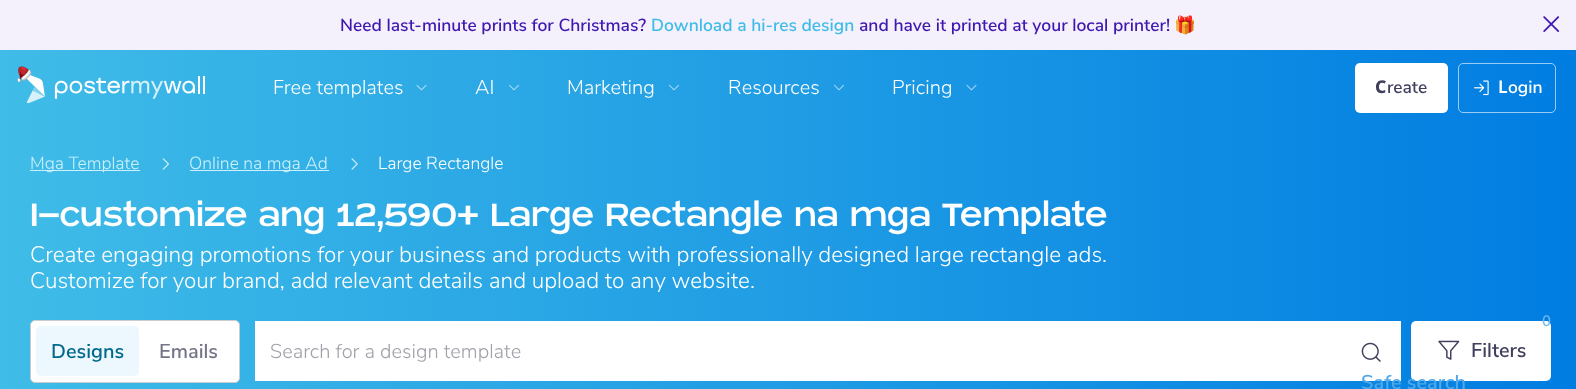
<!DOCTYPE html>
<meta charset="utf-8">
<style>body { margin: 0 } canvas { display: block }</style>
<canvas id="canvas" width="1576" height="389"></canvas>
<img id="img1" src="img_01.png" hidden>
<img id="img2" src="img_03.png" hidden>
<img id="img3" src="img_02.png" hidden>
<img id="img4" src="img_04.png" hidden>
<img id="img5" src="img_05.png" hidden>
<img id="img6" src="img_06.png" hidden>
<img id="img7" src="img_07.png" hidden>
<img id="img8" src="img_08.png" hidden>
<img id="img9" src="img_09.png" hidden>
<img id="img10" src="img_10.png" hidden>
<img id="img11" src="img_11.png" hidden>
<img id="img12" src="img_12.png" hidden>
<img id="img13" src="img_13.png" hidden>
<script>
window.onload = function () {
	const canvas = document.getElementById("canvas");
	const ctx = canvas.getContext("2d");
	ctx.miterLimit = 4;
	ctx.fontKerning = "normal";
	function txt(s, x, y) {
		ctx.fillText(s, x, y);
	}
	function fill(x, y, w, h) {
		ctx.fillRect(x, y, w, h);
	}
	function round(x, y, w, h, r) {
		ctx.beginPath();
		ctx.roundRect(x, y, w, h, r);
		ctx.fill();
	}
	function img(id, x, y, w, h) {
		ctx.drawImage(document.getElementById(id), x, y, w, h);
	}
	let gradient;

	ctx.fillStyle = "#FFFFFF";
	fill(0, 0, 1576, 389);
	ctx.fillStyle = "#F4F1FD";
	fill(0, 0, 1576, 50);
	img("img1", 1543, 16, 17, 16);
	gradient = ctx.createLinearGradient(0, 88, 1576, 87);
	gradient.addColorStop(0, "#3FBCE7");
	gradient.addColorStop(1, "#007DE1");
	ctx.fillStyle = gradient;
	fill(0, 50, 1576, 75);
	img("img2", 26, 75, 179, 28);
	img("img3", 17, 66, 15, 17);
	img("img4", 416, 84, 11, 7);
	img("img5", 509, 84, 10, 7);
	img("img6", 669, 84, 10, 7);
	img("img7", 834, 84, 10, 7);
	img("img8", 966, 84, 11, 7);
	ctx.fillStyle = "#FFFFFF";
	round(1355, 63, 93, 50, 5);
	ctx.beginPath();
	ctx.roundRect(1458.5, 63.5, 97, 49, 4.5);
	ctx.strokeStyle = "rgba(255, 255, 255, 0.6)";
	ctx.stroke();
	img("img9", 1474, 80, 15, 16);
	gradient = ctx.createLinearGradient(0, 261, 1576, 261);
	gradient.addColorStop(0, "#3FBCE7");
	gradient.addColorStop(1, "#007DE1");
	ctx.fillStyle = gradient;
	fill(0, 125, 1576, 264);
	ctx.fillStyle = "#CDF0FB";
	fill(30, 170, 110, 1);
	img("img10", 162, 158, 7, 12);
	fill(190, 170, 139, 1);
	img("img11", 351, 158, 7, 12);
	ctx.fillStyle = "#FFFFFF";
	ctx.beginPath();
	ctx.roundRect(30.5, 320.5, 209, 62, 4.5);
	ctx.fill();
	ctx.strokeStyle = "#CBCBD0";
	ctx.stroke();
	ctx.fillStyle = "#ECF8FD";
	round(36, 326, 103, 50, 5);
	ctx.fillStyle = "#FFFFFF";
	fill(255, 321, 1146, 60);
	img("img12", 1361, 342, 20, 20);
	round(1411, 321, 140, 60, 5);
	img("img13", 1438, 340, 22, 20);
	ctx.font = "600 17.5px Nunito Sans";
	ctx.fillStyle = "#4017AF";
	txt("Need last-minute prints for Christmas?", 340, 31);
	ctx.fillStyle = "#3FBCE7";
	txt("Download a hi-res design", 651, 31);
	ctx.fillStyle = "#4017AF";
	txt("and have it printed at your local printer!", 859, 31);
	ctx.font = "bold 17.5px Noto Color Emoji";
	txt("🎁", 1174, 31);
	ctx.font = "300 20px Nunito Sans";
	ctx.fillStyle = "#FFFFFF";
	txt("Free templates", 273, 94);
	txt("AI", 475, 94);
	txt("Marketing", 567, 94);
	txt("Resources", 728, 94);
	txt("Pricing", 892, 94);
	ctx.font = "800 17.5px Noto Sans";
	ctx.fillStyle = "#403F5D";
	txt("C", 1375, 93);
	ctx.font = "600 17.5px Nunito Sans";
	txt("reate", 1387, 93);
	ctx.font = "600 17.5px Noto Sans";
	ctx.fillStyle = "#FFFFFF";
	txt("L", 1498, 93);
	ctx.font = "600 17.5px Nunito Sans";
	txt("ogin", 1508, 93);
	ctx.font = "300 17.5px Nunito Sans";
	ctx.fillStyle = "#CDF0FB";
	txt("Mga Template", 30, 169);
	txt("Online na mga Ad", 189, 169);
	ctx.fillStyle = "#FFFFFF";
	txt("Large Rectangle", 378, 169);
	ctx.font = "40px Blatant";
	txt("I-customize ang 12,590+ Large Rectangle na mga Template", 30, 226);
	ctx.font = "300 22.5px Nunito Sans";
	txt("Create engaging promotions for your business and products with professionally designed large rectangle ads.", 30, 262);
	txt("Customize for your brand, add relevant details and upload to any website.", 30, 288);
	ctx.font = "600 20px Nunito Sans";
	ctx.fillStyle = "#00688C";
	txt("Designs", 51, 358);
	ctx.fillStyle = "#757589";
	txt("Emails", 159, 358);
	ctx.font = "300 20px Nunito Sans";
	ctx.fillStyle = "#A1A1AA";
	txt("Search for a design template", 270, 358);
	ctx.font = "600 15px Nunito Sans";
	ctx.fillStyle = "#73B8EF";
	txt("0", 1542, 326);
	ctx.font = "600 20px Nunito Sans";
	ctx.fillStyle = "#403F5D";
	txt("Filters", 1471, 357);
	ctx.fillStyle = "#51A9EB";
	txt("Safe search", 1361, 389);
};
</script>
